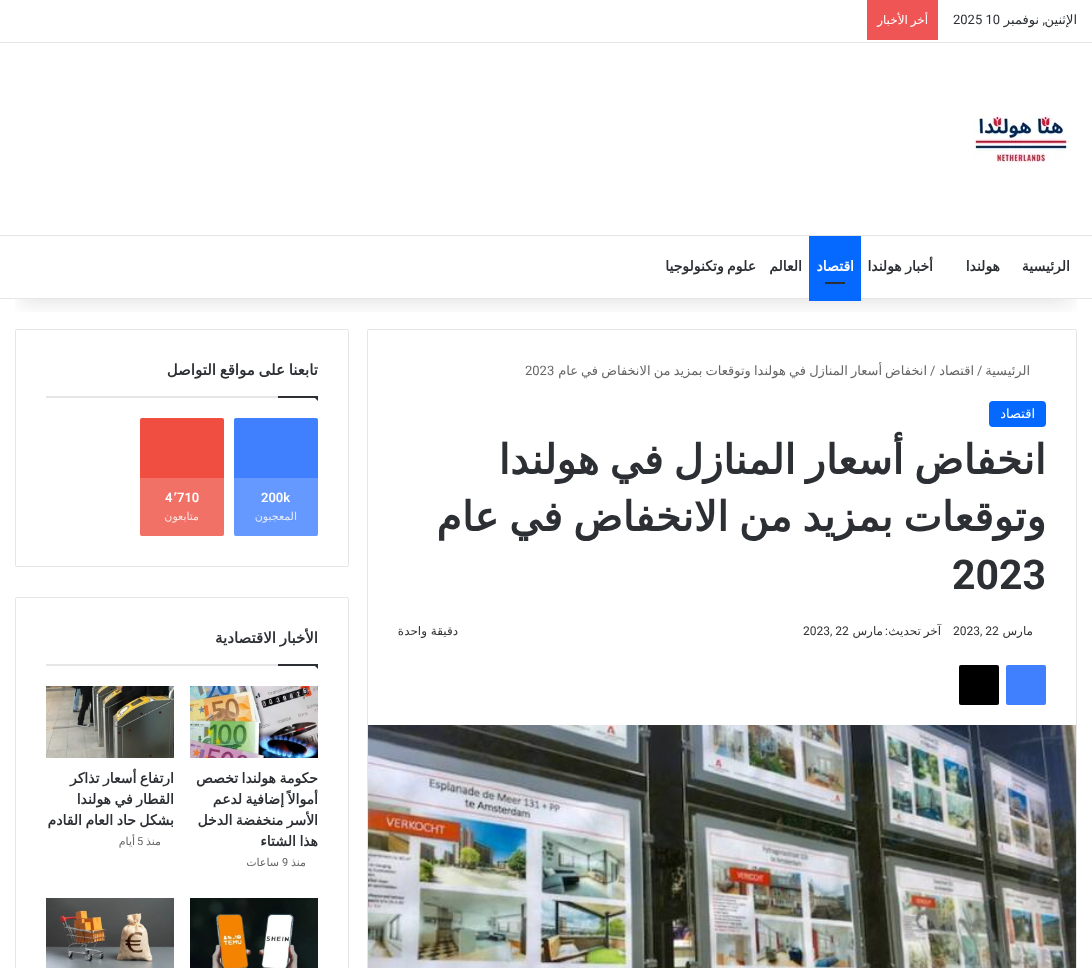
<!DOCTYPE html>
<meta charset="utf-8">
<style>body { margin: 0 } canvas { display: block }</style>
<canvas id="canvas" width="1092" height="968"></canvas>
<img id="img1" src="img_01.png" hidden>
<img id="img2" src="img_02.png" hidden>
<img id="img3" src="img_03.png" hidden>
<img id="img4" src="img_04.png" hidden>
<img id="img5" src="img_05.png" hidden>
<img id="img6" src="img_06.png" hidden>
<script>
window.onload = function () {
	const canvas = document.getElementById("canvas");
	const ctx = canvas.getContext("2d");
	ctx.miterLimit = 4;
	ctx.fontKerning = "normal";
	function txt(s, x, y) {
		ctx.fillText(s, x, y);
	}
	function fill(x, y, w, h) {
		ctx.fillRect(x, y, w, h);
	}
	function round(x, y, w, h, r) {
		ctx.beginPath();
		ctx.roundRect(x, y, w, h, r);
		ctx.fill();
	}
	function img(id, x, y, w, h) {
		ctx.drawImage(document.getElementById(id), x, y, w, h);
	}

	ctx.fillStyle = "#FFFFFF";
	fill(0, 0, 1092, 968);
	ctx.beginPath();
	ctx.roundRect(367.5, 329.5, 709, 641, 1.5);
	ctx.strokeStyle = "#E6E6E6";
	ctx.stroke();
	ctx.beginPath();
	ctx.roundRect(15.5, 329.5, 333, 237, 1.5);
	ctx.stroke();
	ctx.save();
	ctx.beginPath();
	ctx.rect(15, 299, 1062, 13);
	ctx.clip();
	ctx.fillStyle = "rgba(0, 0, 0, 0.1)";
	ctx.filter = "blur(10px)";
	ctx.beginPath();
	ctx.rect(20, 45, 1052, 259);
	ctx.fill();
	ctx.filter = "none";
	ctx.restore();
	ctx.fillStyle = "#E6E6E6";
	fill(0, 42, 1092, 1);
	ctx.fillStyle = "#F05555";
	fill(867, 0, 71, 40);
	img("img1", 973, 115, 100, 48);
	ctx.fillStyle = "#E6E6E6";
	fill(0, 235, 1092, 1);
	fill(0, 298, 1092, 1);
	ctx.fillStyle = "#0669FF";
	fill(809, 236, 52, 65);
	ctx.fillStyle = "#2C2F34";
	fill(825, 282, 20, 2);
	ctx.fillStyle = "#0669FF";
	round(989, 401, 57, 26, 4);
	ctx.fillStyle = "#4080FF";
	round(1006, 665, 40, 40, 2);
	ctx.fillStyle = "#000000";
	round(959, 665, 40, 40, 2);
	img("img2", 368, 725, 708, 243);
	ctx.fillStyle = "#E6E6E6";
	fill(46, 396, 232, 2);
	ctx.fillStyle = "#2C2F34";
	ctx.beginPath();
	ctx.moveTo(313, 396);
	ctx.lineTo(318, 396);
	ctx.lineTo(318, 401);
	ctx.closePath();
	ctx.fill();
	fill(278, 396, 40, 2);
	ctx.fillStyle = "#4080FF";
	round(234, 418, 84, 118, 2);
	ctx.fillStyle = "rgba(255, 255, 255, 0.2)";
	ctx.beginPath();
	ctx.roundRect(234, 478, 84, 58, [0, 0, 2, 2]);
	ctx.fill();
	ctx.fillStyle = "#EF4E41";
	round(140, 418, 84, 118, 2);
	ctx.fillStyle = "rgba(255, 255, 255, 0.2)";
	ctx.beginPath();
	ctx.roundRect(140, 478, 84, 58, [0, 0, 2, 2]);
	ctx.fill();
	ctx.beginPath();
	ctx.roundRect(15.5, 597.5, 333, 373, 1.5);
	ctx.stroke();
	ctx.fillStyle = "#E6E6E6";
	fill(46, 664, 232, 2);
	ctx.fillStyle = "#2C2F34";
	ctx.beginPath();
	ctx.moveTo(313, 664);
	ctx.lineTo(318, 664);
	ctx.lineTo(318, 669);
	ctx.closePath();
	ctx.fill();
	fill(278, 664, 40, 2);
	img("img3", 190, 686, 128, 72);
	img("img4", 46, 686, 128, 72);
	img("img5", 190, 898, 128, 70);
	img("img6", 46, 898, 128, 70);
	ctx.direction = "rtl";
	ctx.font = "13px DejaVu Sans";
	txt("الإثنين", 1077, 24);
	ctx.font = "13px Roboto";
	txt(",", 1045, 24);
	ctx.font = "13px DejaVu Sans";
	txt("نوفمبر", 1039, 24);
	ctx.direction = "ltr";
	ctx.font = "13px Roboto";
	txt("2025 10", 953, 24);
	ctx.wordSpacing = "-1px";
	ctx.direction = "rtl";
	ctx.font = "12px DejaVu Sans";
	ctx.fillStyle = "#FFFFFF";
	txt("أخر الأخبار", 928, 24);
	ctx.wordSpacing = "0px";
	ctx.font = "bold 14px DejaVu Sans";
	ctx.fillStyle = "#2C2F34";
	txt("الرئيسية", 1070, 271);
	txt("هولندا", 1000, 271);
	ctx.wordSpacing = "-1px";
	txt("أخبار هولندا", 933, 271);
	ctx.wordSpacing = "0px";
	ctx.fillStyle = "#FFFFFF";
	txt("اقتصاد", 854, 271);
	ctx.fillStyle = "#2C2F34";
	txt("العالم", 802, 271);
	ctx.wordSpacing = "-1px";
	txt("علوم وتكنولوجيا", 756, 271);
	ctx.wordSpacing = "0px";
	ctx.font = "13px DejaVu Sans";
	ctx.fillStyle = "#666666";
	txt("الرئيسية", 1030, 375);
	ctx.direction = "ltr";
	ctx.font = "13px Roboto";
	txt("/", 977, 375);
	ctx.direction = "rtl";
	ctx.font = "13px DejaVu Sans";
	txt("اقتصاد", 974, 375);
	ctx.direction = "ltr";
	ctx.font = "13px Roboto";
	txt("/", 930, 375);
	ctx.wordSpacing = "-1px";
	ctx.direction = "rtl";
	ctx.font = "13px DejaVu Sans";
	txt("انخفاض أسعار المنازل في هولندا وتوقعات بمزيد من الانخفاض في عام", 927, 375);
	ctx.wordSpacing = "0px";
	ctx.direction = "ltr";
	ctx.font = "13px Roboto";
	txt("2023", 525, 375);
	ctx.direction = "rtl";
	ctx.font = "13px DejaVu Sans";
	ctx.fillStyle = "#FFFFFF";
	txt("اقتصاد", 1035, 418);
	ctx.wordSpacing = "-2.75px";
	ctx.font = "bold 41px DejaVu Sans";
	ctx.fillStyle = "#2C2F34";
	txt("انخفاض أسعار المنازل في هولندا", 1046, 474);
	txt("وتوقعات بمزيد من الانخفاض في عام", 1046, 531);
	ctx.wordSpacing = "0px";
	ctx.direction = "ltr";
	ctx.font = "bold 41px Roboto";
	txt("2023", 952, 589);
	ctx.direction = "rtl";
	ctx.font = "12px DejaVu Sans";
	ctx.fillStyle = "#333333";
	txt("مارس", 1033, 635);
	ctx.direction = "ltr";
	ctx.font = "12px Roboto";
	txt("2023, 22", 953, 635);
	ctx.wordSpacing = "-1px";
	ctx.direction = "rtl";
	ctx.font = "12px DejaVu Sans";
	txt("آخر تحديث", 941, 635);
	ctx.wordSpacing = "0px";
	ctx.font = "12px Roboto";
	txt(":", 888, 635);
	ctx.font = "12px DejaVu Sans";
	txt("مارس", 883, 635);
	ctx.direction = "ltr";
	ctx.font = "12px Roboto";
	txt("2023, 22", 803, 635);
	ctx.direction = "rtl";
	ctx.font = "12px DejaVu Sans";
	txt("دقيقة واحدة", 458, 635);
	ctx.wordSpacing = "-1px";
	ctx.font = "bold 15px DejaVu Sans";
	ctx.fillStyle = "#2C2F34";
	txt("تابعنا على مواقع التواصل", 318, 375);
	ctx.wordSpacing = "0px";
	ctx.direction = "ltr";
	ctx.font = "600 13px Roboto";
	ctx.fillStyle = "#FFFFFF";
	txt("200k", 261, 502);
	ctx.direction = "rtl";
	ctx.font = "11px DejaVu Sans";
	ctx.fillStyle = "#E0EBFF";
	txt("المعجبون", 297, 520);
	ctx.direction = "ltr";
	ctx.font = "600 13px Roboto";
	ctx.fillStyle = "#FFFFFF";
	txt("710", 177, 502);
	ctx.font = "bold 13px DejaVu Sans";
	txt("٬", 173, 502);
	ctx.font = "600 13px Roboto";
	txt("4", 165, 502);
	ctx.direction = "rtl";
	ctx.font = "11px DejaVu Sans";
	ctx.fillStyle = "#FCE3E1";
	txt("متابعون", 199, 520);
	ctx.wordSpacing = "-1px";
	ctx.font = "bold 15px DejaVu Sans";
	ctx.fillStyle = "#2C2F34";
	txt("الأخبار الاقتصادية", 318, 643);
	ctx.font = "bold 14px DejaVu Sans";
	txt("حكومة هولندا تخصص", 318, 783);
	ctx.save();
	ctx.beginPath();
	ctx.rect(46, 686, 272, 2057);
	ctx.clip();
	txt("أموالاً إضافية لدعم", 318, 804);
	txt("الأسر منخفضة الدخل", 318, 825);
	ctx.restore();
	txt("هذا الشتاء", 318, 846);
	ctx.wordSpacing = "0px";
	ctx.font = "11px DejaVu Sans";
	ctx.fillStyle = "#666666";
	txt("منذ", 306, 866);
	ctx.direction = "ltr";
	ctx.font = "11px Roboto";
	txt("9", 282, 866);
	ctx.direction = "rtl";
	ctx.font = "11px DejaVu Sans";
	txt("ساعات", 279, 866);
	ctx.wordSpacing = "-1px";
	ctx.font = "bold 14px DejaVu Sans";
	ctx.fillStyle = "#2C2F34";
	txt("ارتفاع أسعار تذاكر", 174, 783);
	txt("القطار في هولندا", 174, 804);
	txt("بشكل حاد العام القادم", 174, 825);
	ctx.wordSpacing = "0px";
	ctx.font = "11px DejaVu Sans";
	ctx.fillStyle = "#666666";
	txt("منذ", 161, 845);
	ctx.direction = "ltr";
	ctx.font = "11px Roboto";
	txt("5", 137, 845);
	ctx.direction = "rtl";
	ctx.font = "11px DejaVu Sans";
	txt("أيام", 135, 845);
};
</script>
